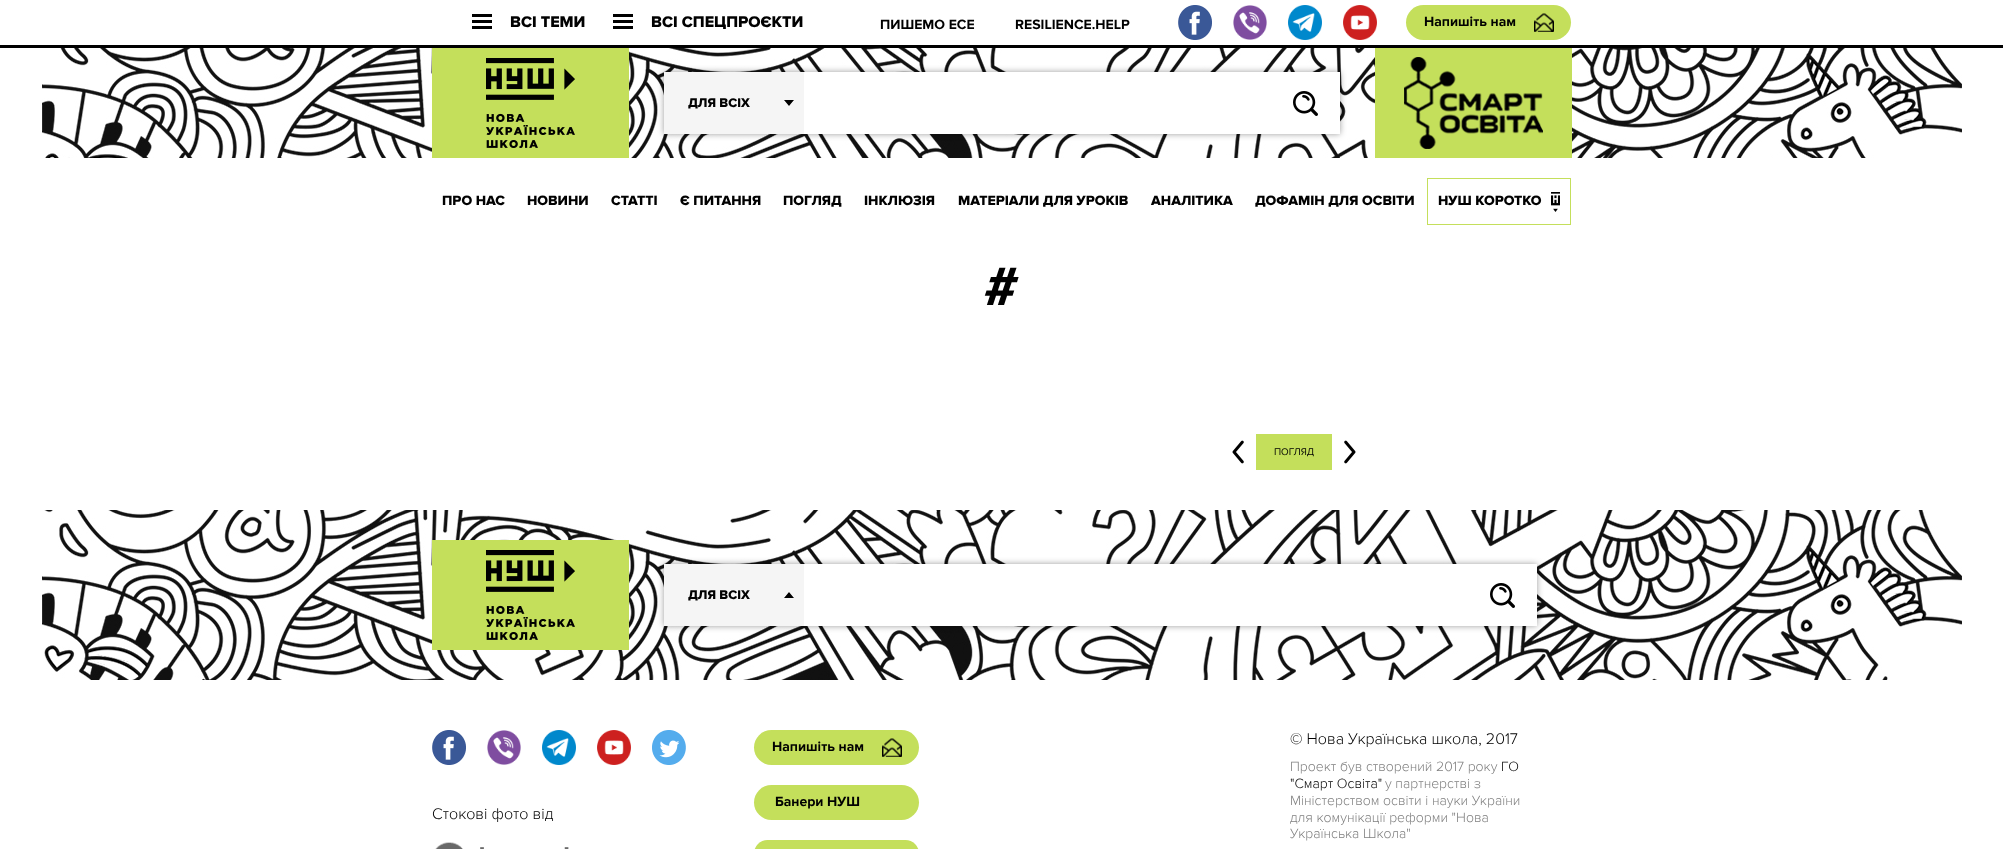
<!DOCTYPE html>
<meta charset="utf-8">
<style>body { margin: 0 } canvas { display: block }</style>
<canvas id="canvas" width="2003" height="849"></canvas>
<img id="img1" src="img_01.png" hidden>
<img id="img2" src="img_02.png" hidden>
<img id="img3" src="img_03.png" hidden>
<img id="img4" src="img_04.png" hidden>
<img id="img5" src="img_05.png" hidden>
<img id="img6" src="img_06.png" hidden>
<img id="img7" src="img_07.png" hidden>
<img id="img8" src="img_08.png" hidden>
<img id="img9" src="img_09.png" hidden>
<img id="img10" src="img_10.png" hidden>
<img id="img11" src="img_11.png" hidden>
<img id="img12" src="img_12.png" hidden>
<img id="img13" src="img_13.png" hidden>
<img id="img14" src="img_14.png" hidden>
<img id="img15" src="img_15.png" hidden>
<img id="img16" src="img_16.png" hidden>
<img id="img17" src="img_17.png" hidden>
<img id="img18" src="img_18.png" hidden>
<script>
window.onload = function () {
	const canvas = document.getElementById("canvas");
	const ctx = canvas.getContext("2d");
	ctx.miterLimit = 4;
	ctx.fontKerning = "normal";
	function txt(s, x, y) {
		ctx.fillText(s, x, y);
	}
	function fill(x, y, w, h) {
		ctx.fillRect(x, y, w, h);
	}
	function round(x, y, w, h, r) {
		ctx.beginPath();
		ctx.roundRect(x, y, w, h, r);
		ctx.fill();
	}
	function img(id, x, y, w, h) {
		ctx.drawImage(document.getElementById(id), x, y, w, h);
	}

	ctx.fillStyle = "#FFFFFF";
	fill(0, 0, 2003, 849);
	ctx.fillStyle = "#000000";
	fill(0, 45, 2003, 3);
	fill(472, 14, 20, 3);
	fill(472, 20, 20, 3);
	fill(472, 26, 20, 3);
	fill(613, 14, 20, 3);
	fill(613, 20, 20, 3);
	fill(613, 26, 20, 3);
	img("img1", 1178, 5, 34, 35);
	img("img2", 1233, 5, 34, 35);
	img("img3", 1288, 5, 34, 35);
	img("img4", 1343, 5, 34, 35);
	ctx.fillStyle = "#C4DF5B";
	round(1406, 5, 165, 35, 17.5);
	img("img5", 1534, 13, 20, 19);
	img("img6", 42, 48, 1920, 110);
	fill(432, 48, 197, 110);
	img("img7", 486, 58, 89, 90);
	ctx.fillStyle = "rgba(0, 0, 0, 0.39)";
	ctx.filter = "blur(3px)";
	ctx.beginPath();
	ctx.rect(664, 72, 676, 62);
	ctx.fill();
	ctx.filter = "none";
	ctx.fillStyle = "#FFFFFF";
	fill(804, 72, 536, 62);
	ctx.fillStyle = "#F5F5F5";
	fill(664, 72, 140, 62);
	img("img8", 784, 100, 10, 6);
	img("img9", 1293, 91, 25, 25);
	ctx.fillStyle = "#C4DF5B";
	fill(1375, 48, 197, 110);
	img("img10", 1404, 57, 139, 92);
	ctx.strokeStyle = "#C4DF5B";
	ctx.strokeRect(1427.5, 178.5, 143, 46);
	img("img11", 1551, 192, 9, 20);
	img("img12", 1232, 440, 12, 24);
	fill(1256, 434, 76, 36);
	img("img13", 1344, 440, 12, 24);
	img("img14", 42, 510, 1920, 170);
	fill(432, 540, 197, 110);
	img("img7", 486, 550, 89, 90);
	ctx.fillStyle = "rgba(0, 0, 0, 0.39)";
	ctx.filter = "blur(3px)";
	ctx.beginPath();
	ctx.rect(664, 564, 873, 62);
	ctx.fill();
	ctx.filter = "none";
	ctx.fillStyle = "#FFFFFF";
	fill(804, 564, 733, 62);
	ctx.fillStyle = "#F5F5F5";
	fill(664, 564, 140, 62);
	img("img15", 784, 592, 10, 6);
	img("img9", 1490, 583, 25, 25);
	ctx.fillStyle = "#C4DF5B";
	round(754, 730, 165, 35, 17.5);
	img("img5", 882, 738, 20, 19);
	round(754, 785, 165, 35, 17.5);
	round(754, 840, 165, 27, 17.5);
	img("img1", 432, 730, 34, 35);
	img("img2", 487, 730, 34, 35);
	img("img3", 542, 730, 34, 35);
	img("img16", 597, 730, 34, 35);
	img("img17", 652, 730, 34, 35);
	img("img18", 435, 842, 134, 7);
	ctx.font = "800 16px Proxima Nova";
	ctx.fillStyle = "#010101";
	txt("ВСІ ТЕМИ", 510, 27);
	txt("ВСІ СПЕЦПРОЄКТИ", 651, 27);
	ctx.font = "bold 14px Proxima Nova";
	txt("ПИШЕМО ЕСЕ", 880, 29);
	txt("RESILIENCE.HELP", 1015, 29);
	txt("Напишіть нам", 1424, 26);
	ctx.font = "800 13px Proxima Nova";
	txt("ДЛЯ ВСІХ", 688, 107);
	ctx.font = "800 14px Proxima Nova";
	txt("ПРО НАС", 442, 205);
	txt("НОВИНИ", 527, 205);
	txt("СТАТТІ", 611, 205);
	txt("Є ПИТАННЯ", 680, 205);
	txt("ПОГЛЯД", 783, 205);
	txt("ІНКЛЮЗІЯ", 864, 205);
	txt("МАТЕРІАЛИ ДЛЯ УРОКІВ", 958, 205);
	txt("АНАЛІТИКА", 1151, 205);
	txt("ДОФАМІН ДЛЯ ОСВІТИ", 1255, 205);
	txt("НУШ КОРОТКО", 1438, 205);
	ctx.font = "800 56px Proxima Nova";
	txt("#", 984, 305);
	ctx.font = "10px Proxima Nova";
	txt("ПОГЛЯД", 1274, 455);
	ctx.font = "800 13px Proxima Nova";
	txt("ДЛЯ ВСІХ", 688, 599);
	ctx.font = "bold 14px Proxima Nova";
	txt("Напишіть нам", 772, 751);
	txt("Банери НУШ", 775, 806);
	ctx.font = "300 16px Proxima Nova";
	txt("© Нова Українська школа, 2017", 1290, 744);
	ctx.font = "300 14px Proxima Nova";
	ctx.fillStyle = "#808080";
	txt("Проект був створений 2017 року", 1290, 771);
	ctx.fillStyle = "#010101";
	txt("ГО", 1501, 771);
	txt("\"Смарт Освіта\"", 1290, 788);
	ctx.fillStyle = "#808080";
	txt("у партнерстві з", 1385, 788);
	txt("Міністерством освіти і науки України", 1290, 805);
	txt("для комунікації реформи \"Нова", 1290, 822);
	txt("Українська Школа\"", 1290, 838);
	ctx.font = "300 16px Proxima Nova";
	ctx.fillStyle = "#010101";
	txt("Стокові фото від", 432, 819);
};
</script>
